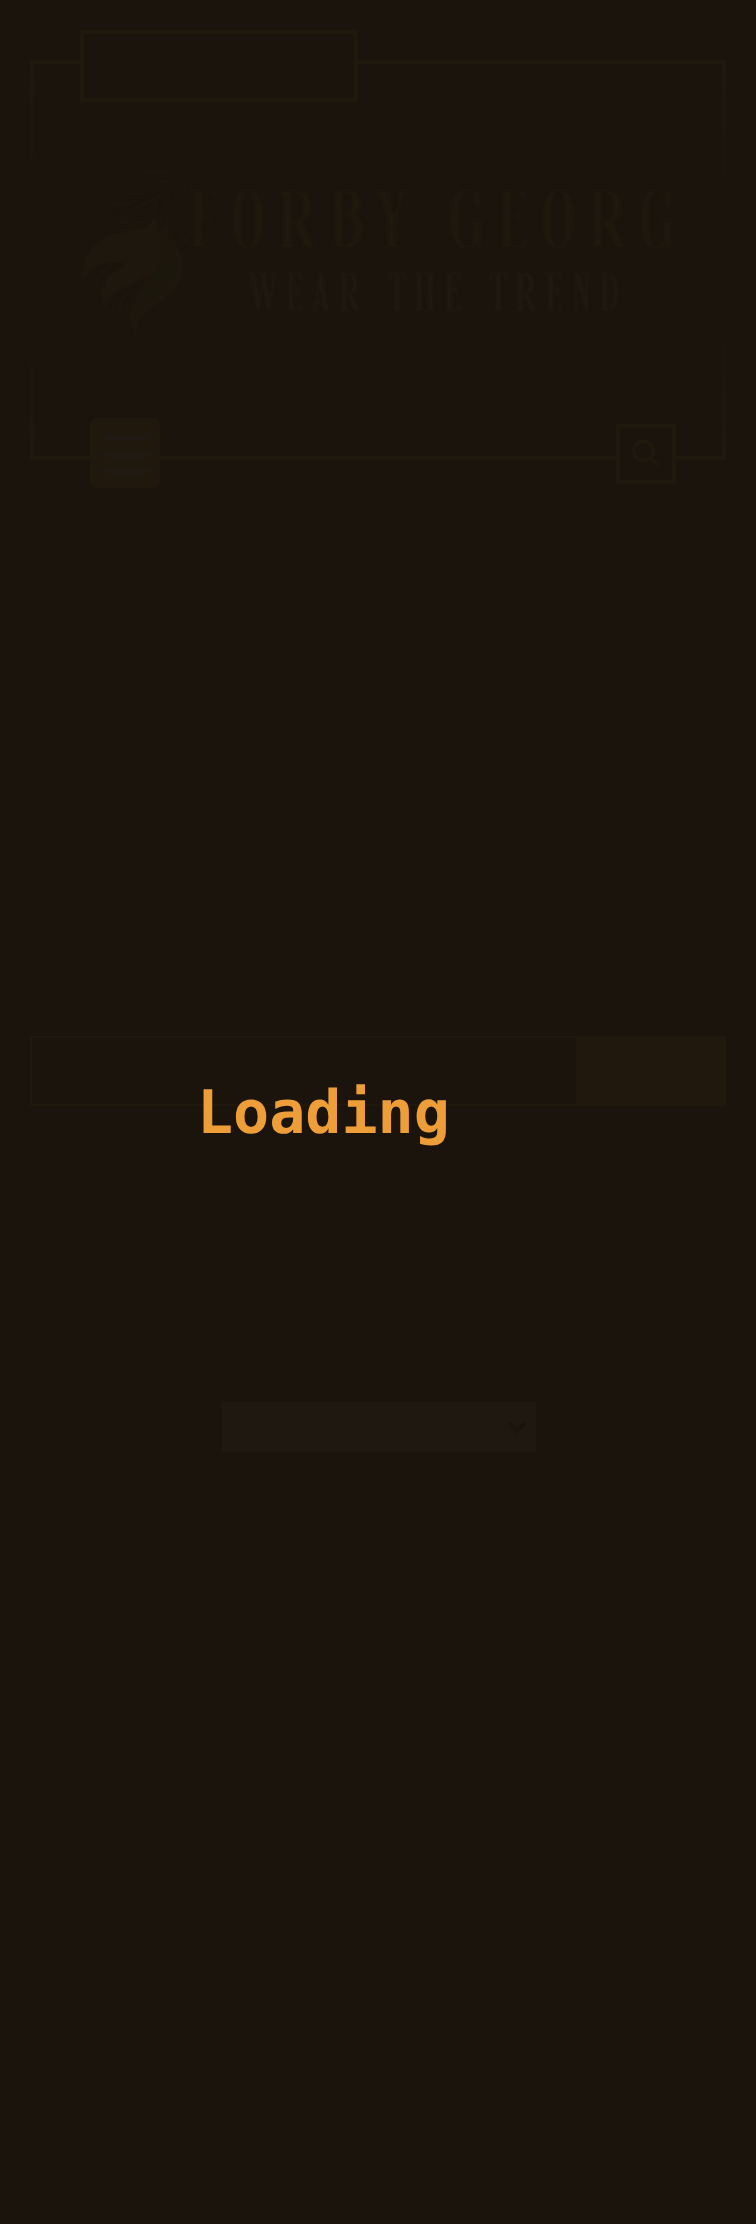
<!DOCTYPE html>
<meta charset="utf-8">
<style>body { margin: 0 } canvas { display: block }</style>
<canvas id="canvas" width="756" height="2224"></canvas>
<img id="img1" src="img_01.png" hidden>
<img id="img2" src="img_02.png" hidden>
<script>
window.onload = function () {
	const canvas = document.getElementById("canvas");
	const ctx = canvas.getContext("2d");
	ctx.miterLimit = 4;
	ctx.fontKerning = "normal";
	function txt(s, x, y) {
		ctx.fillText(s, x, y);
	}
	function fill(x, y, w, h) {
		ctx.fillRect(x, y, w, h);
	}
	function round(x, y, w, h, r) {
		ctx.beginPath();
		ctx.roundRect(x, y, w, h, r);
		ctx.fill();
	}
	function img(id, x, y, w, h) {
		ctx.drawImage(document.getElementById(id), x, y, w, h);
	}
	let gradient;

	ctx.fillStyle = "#1B140C";
	fill(0, 0, 756, 2224);
	ctx.fillStyle = "#20170D";
	fill(30, 60, 696, 4);
	fill(30, 456, 696, 4);
	gradient = ctx.createLinearGradient(32, 64, 32, 456);
	gradient.addColorStop(0, "#20170D");
	gradient.addColorStop(0.35, "#1B140C");
	gradient.addColorStop(0.65, "#1B140C");
	gradient.addColorStop(1, "#20170D");
	ctx.fillStyle = gradient;
	fill(30, 64, 4, 392);
	ctx.fillStyle = "#1B140C";
	fill(84, 60, 270, 4);
	ctx.strokeStyle = "#20170D";
	ctx.lineWidth = 4;
	ctx.strokeRect(82, 32, 274, 68);
	gradient = ctx.createLinearGradient(724, 64, 724, 456);
	gradient.addColorStop(0, "#20170D");
	gradient.addColorStop(0.35, "#1B140C");
	gradient.addColorStop(0.65, "#1B140C");
	gradient.addColorStop(1, "#20170D");
	ctx.fillStyle = gradient;
	fill(722, 64, 4, 392);
	img("img1", 81, 164, 595, 172);
	ctx.fillStyle = "#20170D";
	round(90, 418, 70, 70, 6);
	ctx.fillStyle = "#201911";
	round(102, 434, 50, 6, 3);
	round(102, 452, 50, 6, 3);
	round(102, 468, 50, 6, 3);
	ctx.fillStyle = "#1B140C";
	fill(620, 456, 52, 4);
	ctx.strokeRect(618, 426, 56, 56);
	img("img2", 632, 439, 28, 29);
	ctx.lineWidth = 2;
	ctx.strokeRect(31, 1037, 546, 68);
	ctx.fillStyle = "#20170D";
	fill(578, 1036, 148, 70);
	ctx.fillStyle = "#1F1811";
	ctx.beginPath();
	ctx.rect(223, 1403, 312, 48);
	ctx.fill();
	ctx.strokeStyle = "#1F1810";
	ctx.stroke();
	ctx.beginPath();
	ctx.moveTo(509, 1423);
	ctx.lineTo(517, 1431);
	ctx.lineTo(525, 1423);
	ctx.strokeStyle = "#1A140C";
	ctx.lineWidth = 4;
	ctx.stroke();
	ctx.font = "bold 60px DejaVu Sans Mono";
	ctx.fillStyle = "#ED9E38";
	txt("Loading", 197, 1133);
};
</script>
